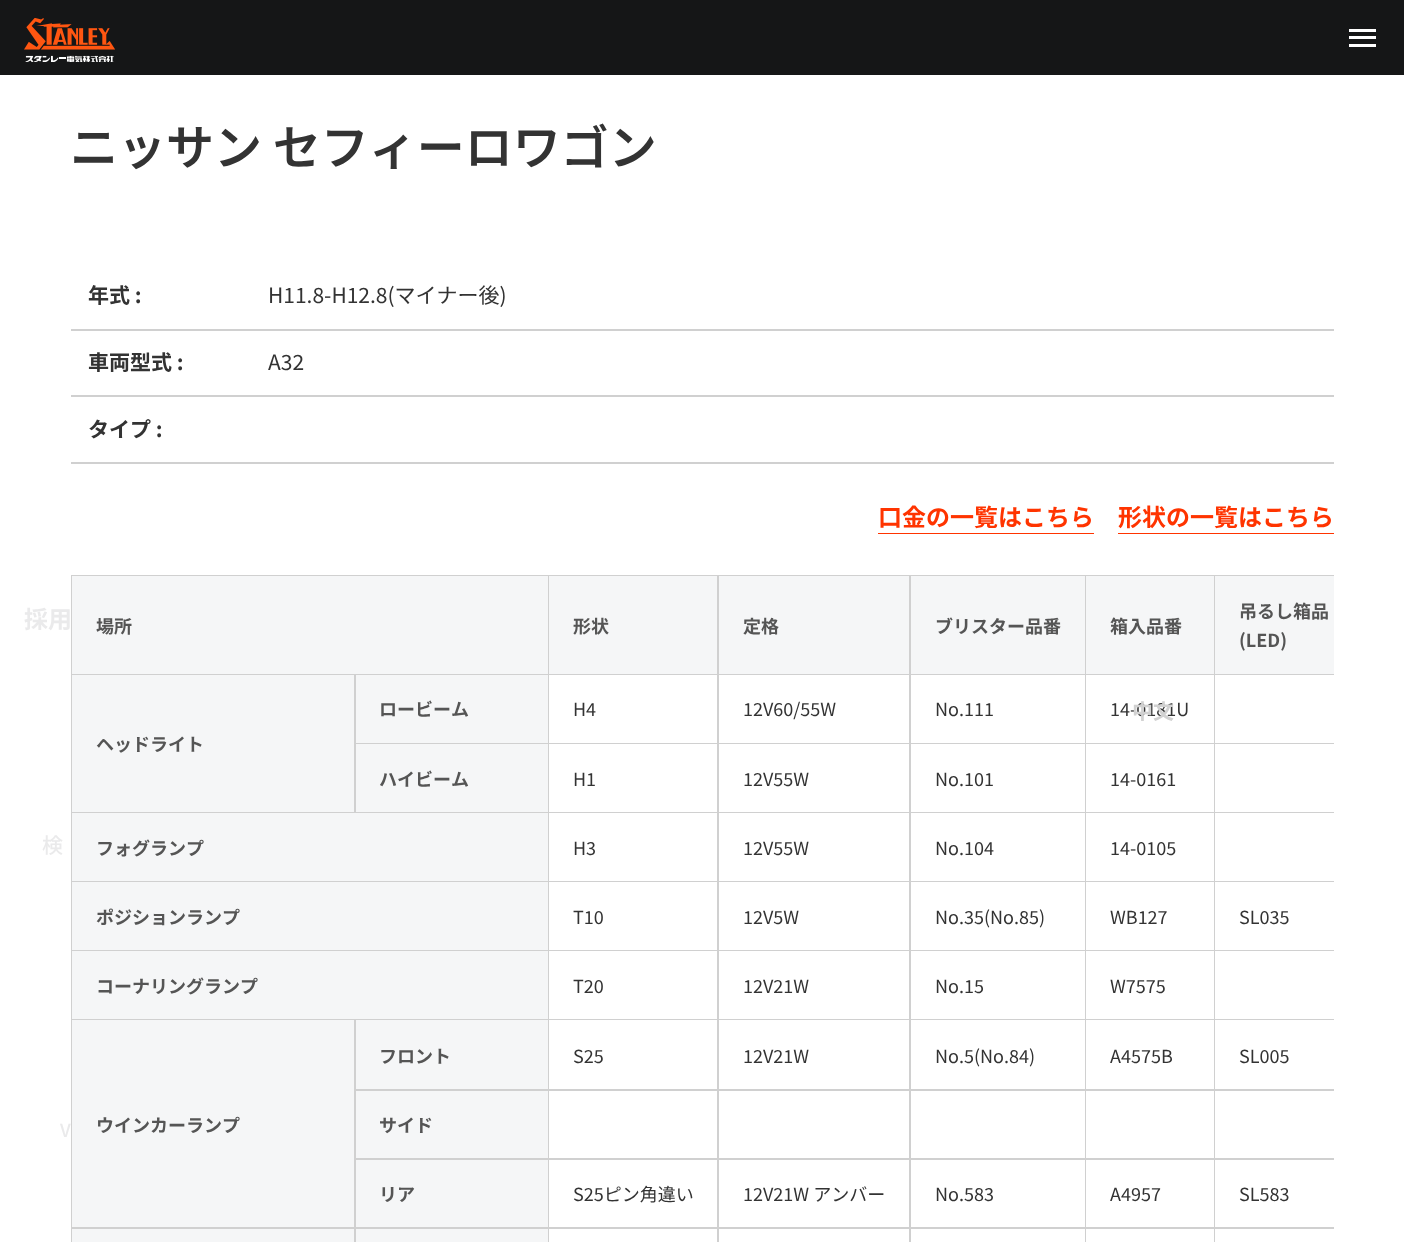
<!DOCTYPE html>
<meta charset="utf-8">
<style>body { margin: 0 } canvas { display: block }</style>
<canvas id="canvas" width="1404" height="1242"></canvas>
<img id="img1" src="img_01.png" hidden>
<script>
window.onload = function () {
	const canvas = document.getElementById("canvas");
	const ctx = canvas.getContext("2d");
	ctx.miterLimit = 4;
	ctx.fontKerning = "none";
	function txt(s, x, y) {
		ctx.fillText(s, x, y);
	}
	function fill(x, y, w, h) {
		ctx.fillRect(x, y, w, h);
	}
	function img(id, x, y, w, h) {
		ctx.drawImage(document.getElementById(id), x, y, w, h);
	}

	ctx.fillStyle = "#FFFFFF";
	fill(0, 0, 1404, 1242);
	ctx.fillStyle = "#D0D0D0";
	fill(71, 329, 1263, 2);
	fill(71, 395, 1263, 2);
	fill(71, 462, 1263, 2);
	ctx.fillStyle = "#FF3400";
	fill(878, 533, 216, 1);
	fill(1118, 533, 216, 1);
	ctx.fillStyle = "#D0D0D0";
	fill(71, 575, 1263, 1);
	fill(71, 575, 2, 667);
	ctx.fillStyle = "#F5F6F7";
	fill(72, 576, 476, 98);
	ctx.fillStyle = "#D0D0D0";
	fill(548, 576, 1, 666);
	fill(72, 674, 477, 1);
	ctx.fillStyle = "#F5F6F7";
	fill(549, 576, 168, 98);
	ctx.fillStyle = "#D0D0D0";
	fill(717, 576, 2, 666);
	fill(549, 674, 170, 1);
	ctx.fillStyle = "#F5F6F7";
	fill(719, 576, 190, 98);
	ctx.fillStyle = "#D0D0D0";
	fill(909, 576, 2, 666);
	fill(719, 674, 192, 1);
	ctx.fillStyle = "#F5F6F7";
	fill(911, 576, 174, 98);
	ctx.fillStyle = "#D0D0D0";
	fill(1085, 576, 1, 666);
	fill(911, 674, 175, 1);
	ctx.fillStyle = "#F5F6F7";
	fill(1086, 576, 128, 98);
	ctx.fillStyle = "#D0D0D0";
	fill(1214, 576, 1, 666);
	fill(1086, 674, 248, 1);
	ctx.fillStyle = "#F5F6F7";
	fill(1215, 576, 119, 98);
	fill(356, 675, 192, 68);
	ctx.fillStyle = "#D0D0D0";
	fill(356, 743, 978, 1);
	ctx.fillStyle = "#F5F6F7";
	fill(72, 675, 282, 137);
	ctx.fillStyle = "#D0D0D0";
	fill(354, 675, 2, 138);
	fill(72, 812, 1262, 1);
	ctx.fillStyle = "#F5F6F7";
	fill(356, 744, 192, 68);
	fill(72, 813, 476, 68);
	ctx.fillStyle = "#D0D0D0";
	fill(72, 881, 1262, 1);
	ctx.fillStyle = "#F5F6F7";
	fill(72, 882, 476, 68);
	ctx.fillStyle = "#D0D0D0";
	fill(72, 950, 1262, 1);
	ctx.fillStyle = "#F5F6F7";
	fill(72, 951, 476, 68);
	ctx.fillStyle = "#D0D0D0";
	fill(72, 1019, 1262, 1);
	ctx.fillStyle = "#F5F6F7";
	fill(356, 1020, 192, 69);
	ctx.fillStyle = "#D0D0D0";
	fill(356, 1089, 978, 2);
	ctx.fillStyle = "#F5F6F7";
	fill(72, 1020, 282, 207);
	ctx.fillStyle = "#D0D0D0";
	fill(354, 1020, 2, 222);
	fill(72, 1227, 1262, 2);
	ctx.fillStyle = "#F5F6F7";
	fill(356, 1091, 192, 67);
	ctx.fillStyle = "#D0D0D0";
	fill(356, 1158, 978, 2);
	ctx.fillStyle = "#F5F6F7";
	fill(356, 1160, 192, 67);
	fill(72, 1229, 282, 13);
	fill(356, 1229, 192, 13);
	ctx.fillStyle = "#151617";
	fill(0, 0, 1404, 75);
	img("img1", 24, 18, 91, 44);
	ctx.fillStyle = "#FFFFFF";
	fill(1349, 29, 27, 3);
	fill(1349, 36, 27, 3);
	fill(1349, 44, 27, 3);
	ctx.font = "600 48px Noto Sans JP";
	ctx.fillStyle = "#333333";
	txt("ニッサン セフィーロワゴン", 70, 165);
	ctx.font = "bold 21px Noto Sans JP";
	txt("年式 :", 88, 303);
	ctx.font = "21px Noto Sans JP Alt";
	txt("H11.8-H12.8(マイナー後)", 268, 303);
	ctx.font = "bold 21px Noto Sans JP";
	txt("車両型式 :", 88, 370);
	ctx.font = "21px Noto Sans JP";
	txt("A32", 268, 370);
	ctx.font = "bold 21px Noto Sans JP";
	txt("タイプ :", 88, 437);
	ctx.font = "bold 24px Noto Sans JP";
	ctx.fillStyle = "#FF3400";
	txt("口金の一覧はこちら", 878, 526);
	txt("形状の一覧はこちら", 1118, 526);
	ctx.font = "bold 18px Noto Sans JP";
	ctx.fillStyle = "#555555";
	txt("場所", 96, 633);
	txt("形状", 573, 633);
	txt("定格", 743, 633);
	txt("ブリスター品番", 935, 633);
	txt("箱入品番", 1110, 633);
	txt("吊るし箱品", 1239, 618);
	txt("(LED)", 1239, 647);
	txt("ロービーム", 379, 716);
	ctx.font = "18px Noto Sans JP";
	ctx.fillStyle = "#333333";
	txt("H4", 573, 716);
	txt("12V60/55W", 743, 716);
	txt("No.111", 935, 716);
	txt("14-0181U", 1110, 716);
	ctx.font = "bold 18px Noto Sans JP";
	ctx.fillStyle = "#555555";
	txt("ヘッドライト", 96, 751);
	txt("ハイビーム", 379, 786);
	ctx.font = "18px Noto Sans JP";
	ctx.fillStyle = "#333333";
	txt("H1", 573, 786);
	txt("12V55W", 743, 786);
	txt("No.101", 935, 786);
	txt("14-0161", 1110, 786);
	ctx.font = "bold 18px Noto Sans JP";
	ctx.fillStyle = "#555555";
	txt("フォグランプ", 96, 855);
	ctx.font = "18px Noto Sans JP";
	ctx.fillStyle = "#333333";
	txt("H3", 573, 855);
	txt("12V55W", 743, 855);
	txt("No.104", 935, 855);
	txt("14-0105", 1110, 855);
	ctx.font = "bold 18px Noto Sans JP";
	ctx.fillStyle = "#555555";
	txt("ポジションランプ", 96, 924);
	ctx.font = "18px Noto Sans JP";
	ctx.fillStyle = "#333333";
	txt("T10", 573, 924);
	txt("12V5W", 743, 924);
	txt("No.35(No.85)", 935, 924);
	txt("WB127", 1110, 924);
	txt("SL035", 1239, 924);
	ctx.font = "bold 18px Noto Sans JP";
	ctx.fillStyle = "#555555";
	txt("コーナリングランプ", 96, 993);
	ctx.font = "18px Noto Sans JP";
	ctx.fillStyle = "#333333";
	txt("T20", 573, 993);
	txt("12V21W", 743, 993);
	txt("No.15", 935, 993);
	txt("W7575", 1110, 993);
	ctx.font = "bold 18px Noto Sans JP";
	ctx.fillStyle = "#555555";
	txt("フロント", 379, 1063);
	ctx.font = "18px Noto Sans JP";
	ctx.fillStyle = "#333333";
	txt("S25", 573, 1063);
	txt("12V21W", 743, 1063);
	txt("No.5(No.84)", 935, 1063);
	txt("A4575B", 1110, 1063);
	txt("SL005", 1239, 1063);
	ctx.font = "bold 18px Noto Sans JP";
	ctx.fillStyle = "#555555";
	txt("ウインカーランプ", 96, 1132);
	txt("サイド", 379, 1132);
	txt("リア", 379, 1201);
	ctx.font = "18px Noto Sans JP";
	ctx.fillStyle = "#333333";
	txt("S25ピン角違い", 573, 1201);
	txt("12V21W アンバー", 743, 1201);
	txt("No.583", 935, 1201);
	txt("A4957", 1110, 1201);
	txt("SL583", 1239, 1201);
	ctx.font = "bold 24px Noto Sans JP";
	ctx.fillStyle = "#EAEAEB";
	txt("採用", 24, 628);
	ctx.font = "bold 21px Noto Sans JP";
	ctx.fillStyle = "#D1D1D1";
	txt("中文", 1132, 719);
	ctx.font = "500 21px Noto Sans JP";
	ctx.fillStyle = "#EAEAEB";
	txt("検", 42, 853);
	ctx.font = "500 18px Noto Sans JP";
	txt("V", 60, 1137);
};
</script>
